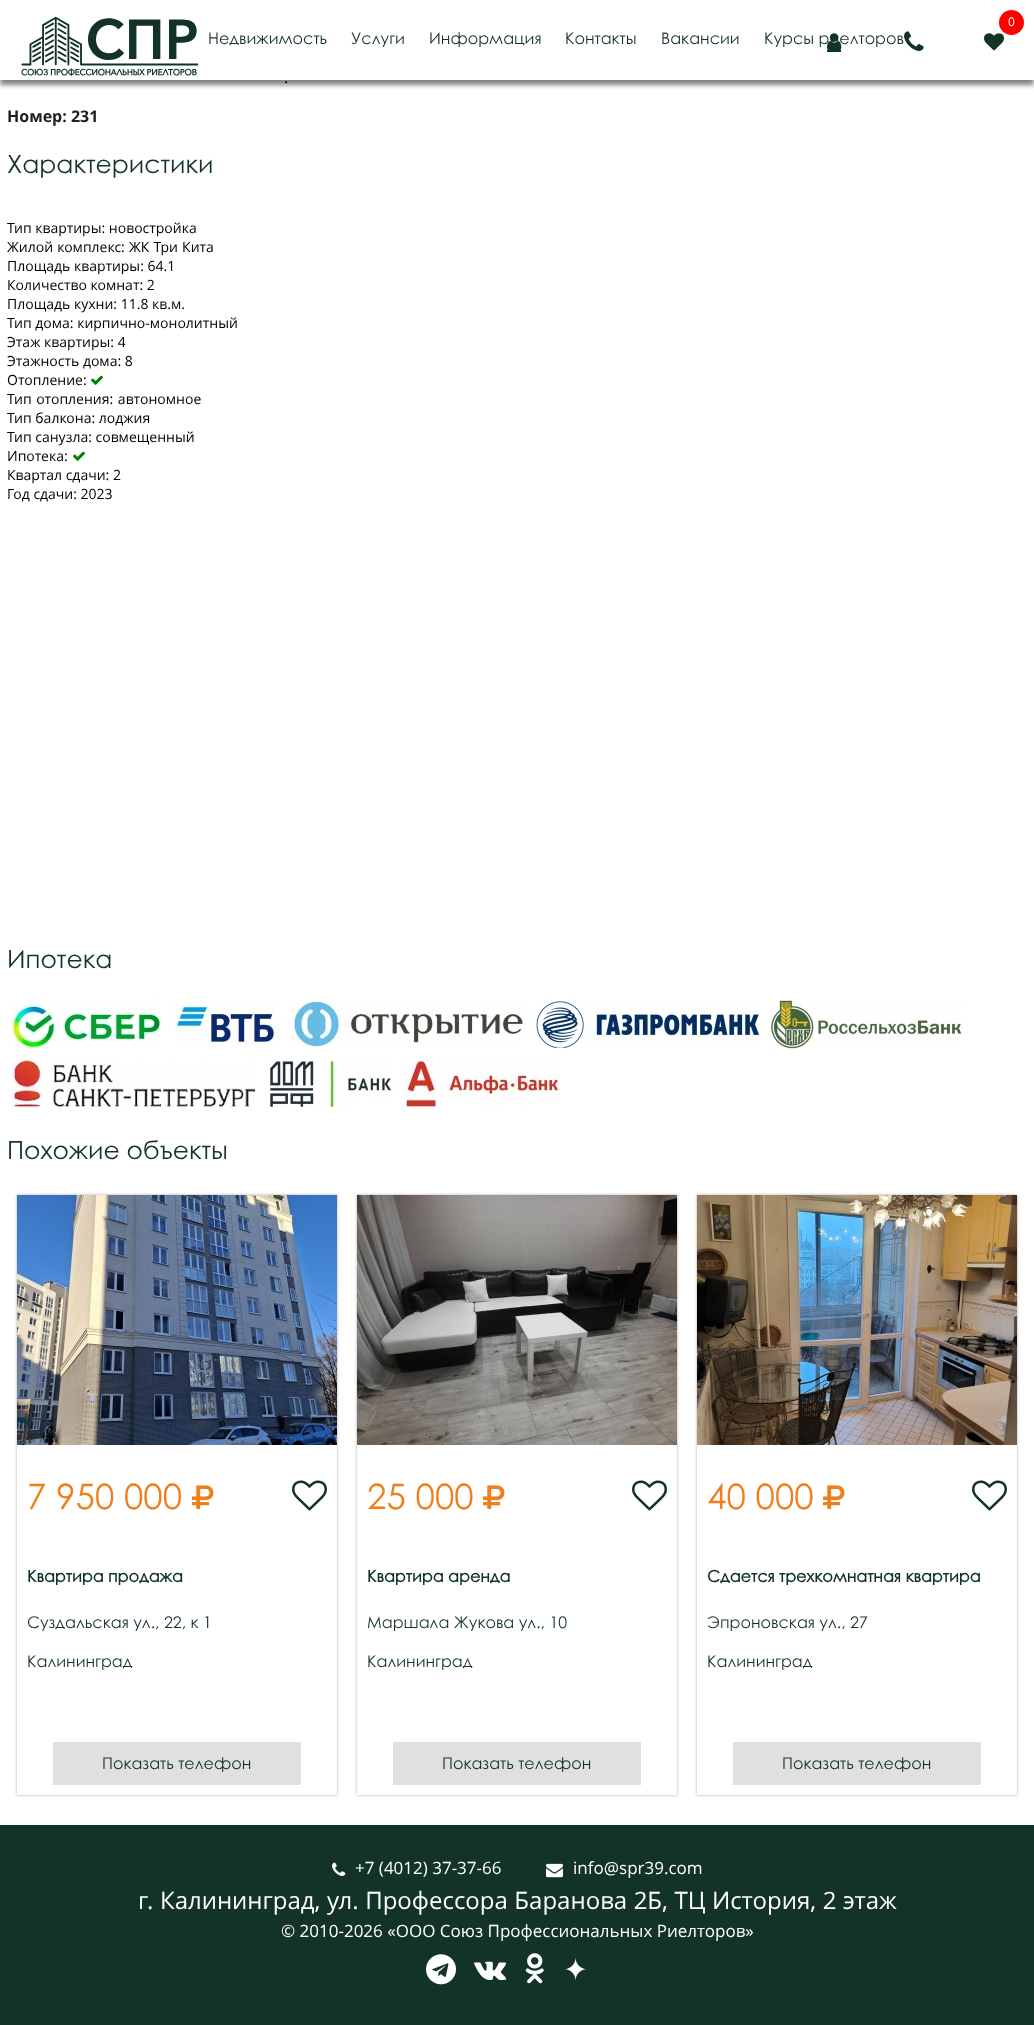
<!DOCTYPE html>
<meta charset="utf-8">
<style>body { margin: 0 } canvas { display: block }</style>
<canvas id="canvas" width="1034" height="2025"></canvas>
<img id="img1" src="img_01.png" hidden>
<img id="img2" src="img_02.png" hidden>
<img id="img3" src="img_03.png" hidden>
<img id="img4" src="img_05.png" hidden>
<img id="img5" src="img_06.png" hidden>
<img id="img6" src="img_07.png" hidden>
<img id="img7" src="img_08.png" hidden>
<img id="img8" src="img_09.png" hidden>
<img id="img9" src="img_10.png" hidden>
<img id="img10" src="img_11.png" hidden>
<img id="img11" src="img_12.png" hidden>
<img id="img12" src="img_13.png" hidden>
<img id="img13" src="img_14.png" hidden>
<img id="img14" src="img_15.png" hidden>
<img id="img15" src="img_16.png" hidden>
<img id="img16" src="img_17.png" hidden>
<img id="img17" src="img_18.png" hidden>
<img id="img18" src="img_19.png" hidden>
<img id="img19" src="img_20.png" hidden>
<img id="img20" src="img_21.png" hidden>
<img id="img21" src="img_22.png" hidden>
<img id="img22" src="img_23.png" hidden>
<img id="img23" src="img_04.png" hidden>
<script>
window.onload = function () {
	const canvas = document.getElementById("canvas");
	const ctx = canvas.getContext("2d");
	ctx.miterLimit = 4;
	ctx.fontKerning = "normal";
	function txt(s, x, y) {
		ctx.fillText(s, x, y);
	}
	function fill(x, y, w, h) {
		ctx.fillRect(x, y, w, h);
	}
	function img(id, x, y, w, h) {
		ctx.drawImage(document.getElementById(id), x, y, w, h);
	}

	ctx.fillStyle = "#FFFFFF";
	fill(0, 0, 1034, 2025);
	ctx.save();
	ctx.beginPath();
	ctx.rect(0, 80, 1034, 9);
	ctx.clip();
	ctx.fillStyle = "rgba(0, 0, 0, 0.5)";
	ctx.filter = "blur(2.5px)";
	ctx.beginPath();
	ctx.rect(0, 5, 1034, 80);
	ctx.fill();
	ctx.filter = "none";
	ctx.restore();
	img("img1", 21, 16, 178, 60);
	img("img2", 984, 33, 20, 18);
	ctx.fillStyle = "#FF0000";
	ctx.beginPath();
	ctx.arc(1011.5, 22.5, 12.5, 0, Math.PI * 2);
	ctx.fill();
	img("img3", 904, 31, 20, 20);
	ctx.fillStyle = "#123325";
	fill(827, 50, 14, 2);
	img("img4", 91, 375, 12, 10);
	img("img4", 73, 451, 12, 10);
	img("img5", 12, 999, 149, 50);
	img("img6", 171, 999, 111, 48);
	img("img7", 292, 999, 232, 49);
	img("img8", 535, 999, 225, 50);
	img("img9", 770, 999, 192, 50);
	img("img10", 12, 1059, 244, 49);
	img("img11", 267, 1059, 127, 49);
	img("img12", 404, 1059, 156, 49);
	ctx.save();
	ctx.beginPath();
	ctx.moveTo(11, 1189);
	ctx.lineTo(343, 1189);
	ctx.lineTo(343, 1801);
	ctx.lineTo(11, 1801);
	ctx.closePath();
	ctx.moveTo(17, 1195);
	ctx.lineTo(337, 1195);
	ctx.lineTo(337, 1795);
	ctx.lineTo(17, 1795);
	ctx.closePath();
	ctx.clip("evenodd");
	ctx.fillStyle = "rgba(0, 0, 0, 0.33)";
	ctx.filter = "blur(1.5px)";
	ctx.beginPath();
	ctx.rect(17, 1195, 320, 600);
	ctx.fill();
	ctx.filter = "none";
	ctx.restore();
	img("img13", 17, 1195, 320, 250);
	img("img14", 192, 1485, 22, 24);
	img("img15", 292, 1480, 35, 31);
	ctx.fillStyle = "#E0E0E0";
	fill(53, 1742, 248, 43);
	ctx.save();
	ctx.beginPath();
	ctx.moveTo(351, 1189);
	ctx.lineTo(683, 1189);
	ctx.lineTo(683, 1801);
	ctx.lineTo(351, 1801);
	ctx.closePath();
	ctx.moveTo(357, 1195);
	ctx.lineTo(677, 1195);
	ctx.lineTo(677, 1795);
	ctx.lineTo(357, 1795);
	ctx.closePath();
	ctx.clip("evenodd");
	ctx.fillStyle = "rgba(0, 0, 0, 0.33)";
	ctx.filter = "blur(1.5px)";
	ctx.beginPath();
	ctx.rect(357, 1195, 320, 600);
	ctx.fill();
	ctx.filter = "none";
	ctx.restore();
	img("img16", 357, 1195, 320, 250);
	img("img14", 483, 1485, 22, 24);
	img("img15", 632, 1480, 35, 31);
	fill(393, 1742, 248, 43);
	ctx.save();
	ctx.beginPath();
	ctx.moveTo(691, 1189);
	ctx.lineTo(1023, 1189);
	ctx.lineTo(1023, 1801);
	ctx.lineTo(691, 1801);
	ctx.closePath();
	ctx.moveTo(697, 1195);
	ctx.lineTo(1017, 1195);
	ctx.lineTo(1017, 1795);
	ctx.lineTo(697, 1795);
	ctx.closePath();
	ctx.clip("evenodd");
	ctx.fillStyle = "rgba(0, 0, 0, 0.33)";
	ctx.filter = "blur(1.5px)";
	ctx.beginPath();
	ctx.rect(697, 1195, 320, 600);
	ctx.fill();
	ctx.filter = "none";
	ctx.restore();
	img("img17", 697, 1195, 320, 250);
	img("img14", 823, 1485, 22, 24);
	img("img15", 972, 1480, 35, 31);
	fill(733, 1742, 248, 43);
	ctx.fillStyle = "#123325";
	fill(0, 1825, 1034, 200);
	img("img18", 332, 1862, 14, 14);
	img("img19", 546, 1863, 17, 15);
	img("img20", 426, 1954, 30, 31);
	img("img21", 474, 1961, 33, 19);
	img("img22", 525, 1953, 19, 31);
	ctx.font = "12px Open Sans";
	ctx.fillStyle = "#FFFFFF";
	txt("0", 1008, 26);
	ctx.font = "16px Century Gothic";
	ctx.fillStyle = "#123325";
	txt("Недвижимость", 208, 44);
	txt("Услуги", 351, 44);
	txt("Информация", 429, 44);
	txt("Контакты", 565, 44);
	txt("Вакансии", 661, 44);
	txt("Курсы риелторов", 764, 44);
	img("img23", 827, 33, 15, 17);
	ctx.font = "16px Open Sans";
	ctx.fillStyle = "#000000";
	txt(".", 284, 83);
	ctx.font = "bold 16px Open Sans";
	ctx.fillStyle = "#202020";
	txt("Номер: 231", 7, 122);
	ctx.font = "25px Century Gothic";
	ctx.fillStyle = "#123325";
	txt("Характеристики", 7, 173);
	ctx.font = "14px Open Sans";
	ctx.fillStyle = "#000000";
	txt("Тип квартиры: новостройка", 7, 233);
	ctx.wordSpacing = "0.5px";
	txt("Жилой комплекс: ЖК Три Кита", 7, 252);
	ctx.wordSpacing = "0px";
	txt("Площадь квартиры: 64.1", 7, 271);
	txt("Количество комнат: 2", 7, 290);
	txt("Площадь кухни: 11.8 кв.м.", 7, 309);
	txt("Тип дома: кирпично-монолитный", 7, 328);
	txt("Этаж квартиры: 4", 7, 347);
	txt("Этажность дома: 8", 7, 366);
	txt("Отопление:", 7, 385);
	ctx.wordSpacing = "1px";
	txt("Тип отопления: автономное", 7, 404);
	ctx.wordSpacing = "0px";
	txt("Тип балкона: лоджия", 7, 423);
	txt("Тип санузла: совмещенный", 7, 442);
	txt("Ипотека:", 7, 461);
	txt("Квартал сдачи: 2", 7, 480);
	txt("Год сдачи: 2023", 7, 499);
	ctx.font = "25px Century Gothic";
	ctx.fillStyle = "#123325";
	txt("Ипотека", 7, 968);
	txt("Похожие объекты", 7, 1159);
	ctx.font = "35px Century Gothic";
	ctx.fillStyle = "#EE7F1B";
	txt("7 950 000", 27, 1509);
	ctx.font = "bold 16px Century Gothic";
	ctx.fillStyle = "#123325";
	txt("Квартира продажа", 27, 1582);
	ctx.font = "16px Century Gothic";
	txt("Суздальская ул., 22, к 1", 27, 1628);
	txt("Калининград", 27, 1667);
	txt("Показать телефон", 102, 1769);
	ctx.font = "35px Century Gothic";
	ctx.fillStyle = "#EE7F1B";
	txt("25 000", 367, 1509);
	ctx.font = "bold 16px Century Gothic";
	ctx.fillStyle = "#123325";
	txt("Квартира аренда", 367, 1582);
	ctx.font = "16px Century Gothic";
	txt("Маршала Жукова ул., 10", 367, 1628);
	txt("Калининград", 367, 1667);
	txt("Показать телефон", 442, 1769);
	ctx.font = "35px Century Gothic";
	ctx.fillStyle = "#EE7F1B";
	txt("40 000", 707, 1509);
	ctx.font = "bold 16px Century Gothic";
	ctx.fillStyle = "#123325";
	txt("Сдается трехкомнатная квартира", 707, 1582);
	ctx.font = "16px Century Gothic";
	txt("Эпроновская ул., 27", 707, 1628);
	txt("Калининград", 707, 1667);
	txt("Показать телефон", 782, 1769);
	ctx.font = "17px Open Sans";
	ctx.fillStyle = "#FFFFFF";
	txt("+7 (4012) 37-37-66", 355, 1874);
	txt("info@spr39.com", 573, 1874);
	ctx.wordSpacing = "0.25px";
	ctx.font = "24px Open Sans";
	txt("г. Калининград, ул. Профессора Баранова 2Б, ТЦ История, 2 этаж", 138, 1909);
	ctx.wordSpacing = "0px";
	ctx.font = "17px Open Sans";
	txt("© 2010-2026 «ООО Союз Профессиональных Риелторов»", 281, 1937);
	ctx.font = "30px DejaVu Sans";
	txt("✦", 563, 1980);
};
</script>
